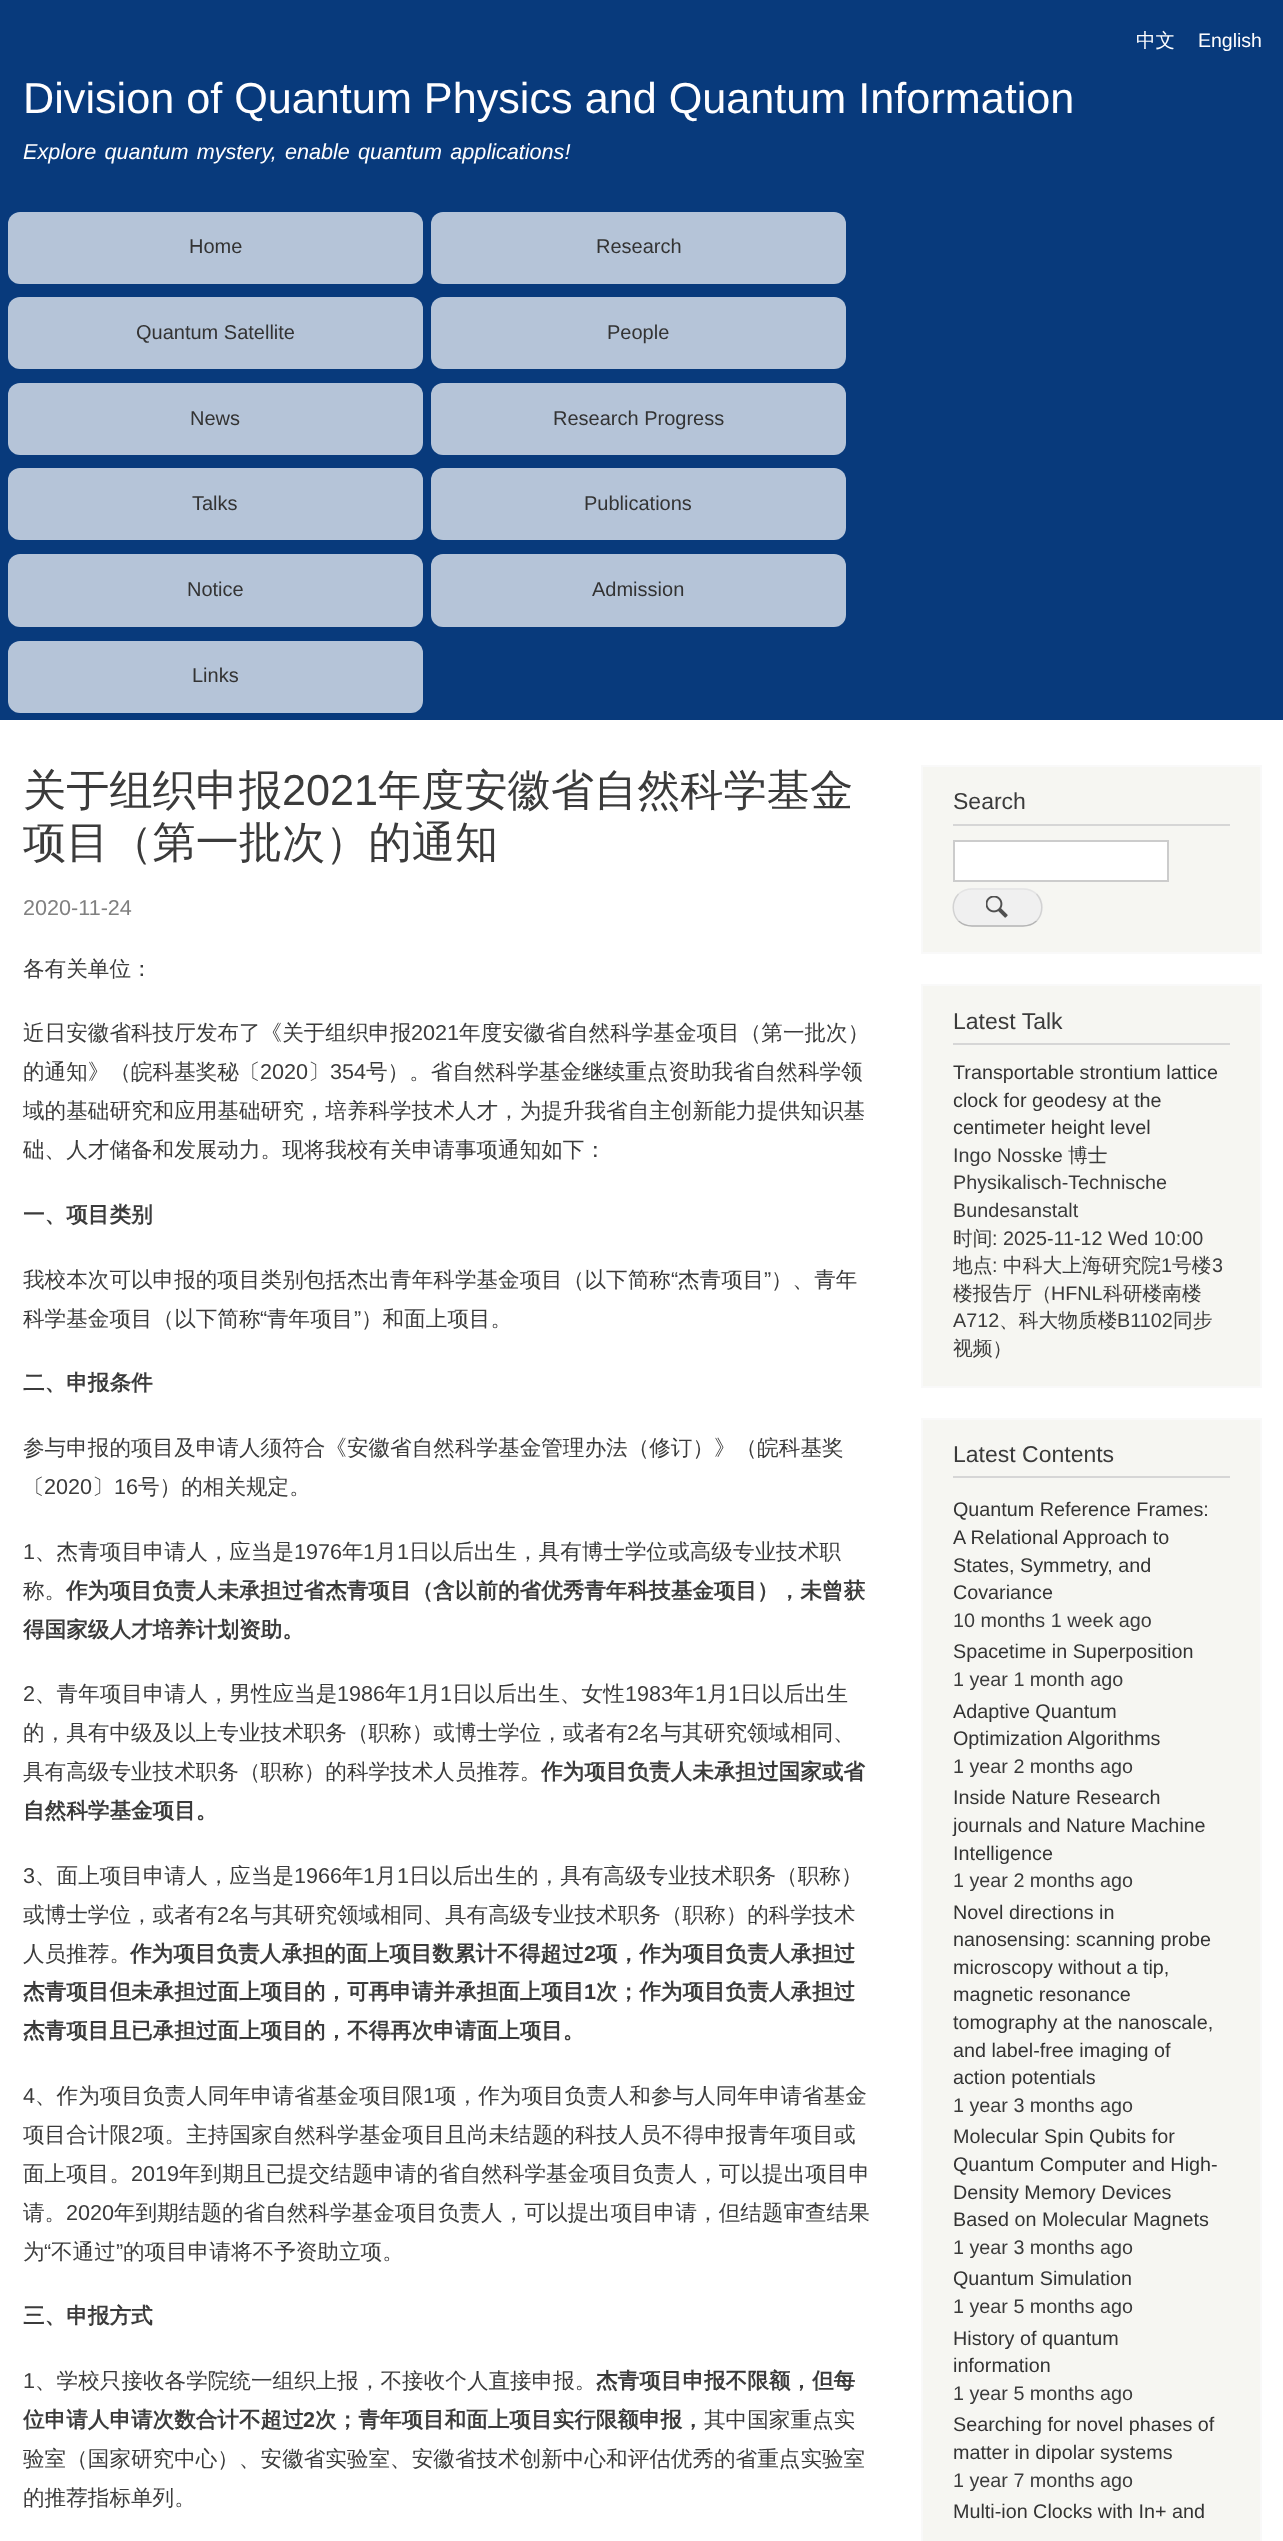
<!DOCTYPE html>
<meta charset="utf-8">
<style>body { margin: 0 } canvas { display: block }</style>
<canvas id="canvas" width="1283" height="2541"></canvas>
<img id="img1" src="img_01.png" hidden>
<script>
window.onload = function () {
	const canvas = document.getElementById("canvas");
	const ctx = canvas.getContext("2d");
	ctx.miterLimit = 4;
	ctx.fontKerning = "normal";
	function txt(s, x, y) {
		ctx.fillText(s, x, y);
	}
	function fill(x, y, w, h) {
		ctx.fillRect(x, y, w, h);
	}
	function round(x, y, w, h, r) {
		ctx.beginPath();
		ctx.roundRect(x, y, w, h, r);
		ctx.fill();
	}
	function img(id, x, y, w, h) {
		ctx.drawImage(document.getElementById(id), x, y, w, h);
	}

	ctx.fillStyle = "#FFFFFF";
	fill(0, 0, 1283, 2541);
	ctx.fillStyle = "#083A7C";
	fill(0, 0, 1283, 720);
	ctx.fillStyle = "#B5C4D8";
	round(8, 212, 415, 72, 12);
	round(431, 212, 415, 72, 12);
	round(8, 297, 415, 72, 12);
	round(431, 297, 415, 72, 12);
	round(8, 383, 415, 72, 12);
	round(431, 383, 415, 72, 12);
	round(8, 468, 415, 72, 12);
	round(431, 468, 415, 72, 12);
	round(8, 554, 415, 73, 12);
	round(431, 554, 415, 73, 12);
	round(8, 641, 415, 72, 12);
	ctx.fillStyle = "#F6F6F2";
	ctx.beginPath();
	ctx.rect(922, 766, 339, 187);
	ctx.fill();
	ctx.strokeStyle = "#F9F9F9";
	ctx.lineWidth = 2;
	ctx.stroke();
	ctx.fillStyle = "#D6D6D6";
	fill(953, 824, 277, 2);
	ctx.fillStyle = "#FFFFFF";
	ctx.beginPath();
	ctx.rect(954, 841, 214, 40);
	ctx.fill();
	ctx.strokeStyle = "#CCCCCC";
	ctx.stroke();
	ctx.fillStyle = "#F0F0F0";
	round(953, 888, 90, 39, 19.5);
	img("img1", 986, 896, 22, 22);
	ctx.beginPath();
	ctx.moveTo(958.5, 894);
	ctx.bezierCurveTo(962.5, 890.5, 967, 889, 972, 889);
	ctx.lineTo(1023, 889);
	ctx.bezierCurveTo(1028, 889, 1032.5, 890.5, 1036.5, 894);
	ctx.strokeStyle = "#E4E4E4";
	ctx.lineWidth = 1.5;
	ctx.stroke();
	ctx.beginPath();
	ctx.moveTo(1036.5, 894);
	ctx.bezierCurveTo(1043.5, 901.5, 1043.5, 913.5, 1036.5, 921);
	ctx.strokeStyle = "#D2D2D2";
	ctx.stroke();
	ctx.beginPath();
	ctx.moveTo(1036.5, 921);
	ctx.bezierCurveTo(1032.5, 924.5, 1028, 926, 1023, 926);
	ctx.lineTo(972, 926);
	ctx.bezierCurveTo(967, 926, 962.5, 924.5, 958.5, 921);
	ctx.strokeStyle = "#B4B4B4";
	ctx.stroke();
	ctx.beginPath();
	ctx.moveTo(958.5, 921);
	ctx.bezierCurveTo(951.5, 913.5, 951.5, 901.5, 958.5, 894);
	ctx.strokeStyle = "#D2D2D2";
	ctx.stroke();
	ctx.fillStyle = "#F6F6F2";
	ctx.beginPath();
	ctx.rect(922, 985, 339, 402);
	ctx.fill();
	ctx.strokeStyle = "#F9F9F9";
	ctx.lineWidth = 2;
	ctx.stroke();
	ctx.fillStyle = "#D6D6D6";
	fill(953, 1043, 277, 2);
	ctx.fillStyle = "#F6F6F2";
	ctx.beginPath();
	ctx.rect(922, 1419, 339, 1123);
	ctx.fill();
	ctx.stroke();
	ctx.fillStyle = "#D6D6D6";
	fill(953, 1476, 277, 2);
	ctx.font = "500 19.5px WenQuanYi Zen Hei";
	ctx.fillStyle = "#FFFEFF";
	txt("中文", 1136, 47);
	ctx.font = "19.5px Liberation Sans";
	txt("English", 1198, 47);
	ctx.font = "43.2px Liberation Sans";
	txt("Division of Quantum Physics and Quantum Information", 23, 113);
	ctx.wordSpacing = "2.25px";
	ctx.font = "italic 21.6px Liberation Sans";
	txt("Explore quantum mystery, enable quantum applications!", 23, 159);
	ctx.wordSpacing = "0px";
	ctx.font = "20px Liberation Sans";
	ctx.fillStyle = "#333333";
	txt("Home", 189, 253);
	txt("Research", 596, 253);
	txt("Quantum Satellite", 136, 339);
	txt("People", 607, 339);
	txt("News", 190, 425);
	txt("Research Progress", 553, 425);
	txt("Talks", 192, 510);
	txt("Publications", 584, 510);
	txt("Notice", 187, 596);
	txt("Admission", 592, 596);
	txt("Links", 192, 682);
	ctx.font = "500 43.2px WenQuanYi Zen Hei";
	ctx.fillStyle = "#3B3B3B";
	txt("关于组织申报", 23, 805);
	ctx.font = "43.2px Liberation Sans";
	txt("2021", 282, 805);
	ctx.font = "500 43.2px WenQuanYi Zen Hei";
	txt("年度安徽省自然科学基金", 378, 805);
	txt("项目（第一批次）的通知", 23, 857);
	ctx.font = "21.6px Liberation Sans";
	ctx.fillStyle = "#808080";
	txt("2020-11-24", 23, 915);
	ctx.font = "500 21.6px WenQuanYi Zen Hei";
	ctx.fillStyle = "#3B3B3B";
	txt("各有关单位：", 23, 976);
	txt("近日安徽省科技厅发布了《关于组织申报", 23, 1040);
	ctx.font = "21.6px Liberation Sans";
	txt("2021", 411, 1040);
	ctx.font = "500 21.6px WenQuanYi Zen Hei";
	txt("年度安徽省自然科学基金项目（第一批次）", 459, 1040);
	txt("的通知》（皖科基奖秘〔", 23, 1079);
	ctx.font = "21.6px Liberation Sans";
	txt("2020", 260, 1079);
	ctx.font = "500 21.6px WenQuanYi Zen Hei";
	txt("〕", 308, 1079);
	ctx.font = "21.6px Liberation Sans";
	txt("354", 330, 1079);
	ctx.font = "500 21.6px WenQuanYi Zen Hei";
	txt("号）。省自然科学基金继续重点资助我省自然科学领", 366, 1079);
	txt("域的基础研究和应用基础研究，培养科学技术人才，为提升我省自主创新能力提供知识基", 23, 1118);
	txt("础、人才储备和发展动力。现将我校有关申请事项通知如下：", 23, 1157);
	ctx.font = "bold 21.6px WenQuanYi Zen Hei";
	txt("一、项目类别", 23, 1222);
	ctx.font = "500 21.6px WenQuanYi Zen Hei";
	txt("我校本次可以申报的项目类别包括杰出青年科学基金项目（以下简称", 23, 1287);
	ctx.font = "21.6px Liberation Sans";
	txt("“", 671, 1287);
	ctx.font = "500 21.6px WenQuanYi Zen Hei";
	txt("杰青项目", 678, 1287);
	ctx.font = "21.6px Liberation Sans";
	txt("”", 764, 1287);
	ctx.font = "500 21.6px WenQuanYi Zen Hei";
	txt("）、青年", 771, 1287);
	txt("科学基金项目（以下简称", 23, 1326);
	ctx.font = "21.6px Liberation Sans";
	txt("“", 260, 1326);
	ctx.font = "500 21.6px WenQuanYi Zen Hei";
	txt("青年项目", 267, 1326);
	ctx.font = "21.6px Liberation Sans";
	txt("”", 354, 1326);
	ctx.font = "500 21.6px WenQuanYi Zen Hei";
	txt("）和面上项目。", 361, 1326);
	ctx.font = "bold 21.6px WenQuanYi Zen Hei";
	txt("二、申报条件", 23, 1390);
	ctx.font = "500 21.6px WenQuanYi Zen Hei";
	txt("参与申报的项目及申请人须符合《安徽省自然科学基金管理办法（修订）》（皖科基奖", 23, 1455);
	txt("〔", 23, 1494);
	ctx.font = "21.6px Liberation Sans";
	txt("2020", 44, 1494);
	ctx.font = "500 21.6px WenQuanYi Zen Hei";
	txt("〕", 92, 1494);
	ctx.font = "21.6px Liberation Sans";
	txt("16", 114, 1494);
	ctx.font = "500 21.6px WenQuanYi Zen Hei";
	txt("号）的相关规定。", 138, 1494);
	ctx.font = "21.6px Liberation Sans";
	txt("1", 23, 1559);
	ctx.font = "500 21.6px WenQuanYi Zen Hei";
	txt("、杰青项目申请人，应当是", 35, 1559);
	ctx.font = "21.6px Liberation Sans";
	txt("1976", 294, 1559);
	ctx.font = "500 21.6px WenQuanYi Zen Hei";
	txt("年", 342, 1559);
	ctx.font = "21.6px Liberation Sans";
	txt("1", 363, 1559);
	ctx.font = "500 21.6px WenQuanYi Zen Hei";
	txt("月", 375, 1559);
	ctx.font = "21.6px Liberation Sans";
	txt("1", 397, 1559);
	ctx.font = "500 21.6px WenQuanYi Zen Hei";
	txt("日以后出生，具有博士学位或高级专业技术职", 409, 1559);
	txt("称。", 23, 1598);
	ctx.font = "bold 21.6px WenQuanYi Zen Hei";
	txt("作为项目负责人未承担过省杰青项目（含以前的省优秀青年科技基金项目），未曾获", 66, 1598);
	txt("得国家级人才培养计划资助。", 23, 1637);
	ctx.font = "21.6px Liberation Sans";
	txt("2", 23, 1701);
	ctx.font = "500 21.6px WenQuanYi Zen Hei";
	txt("、青年项目申请人，男性应当是", 35, 1701);
	ctx.font = "21.6px Liberation Sans";
	txt("1986", 337, 1701);
	ctx.font = "500 21.6px WenQuanYi Zen Hei";
	txt("年", 385, 1701);
	ctx.font = "21.6px Liberation Sans";
	txt("1", 407, 1701);
	ctx.font = "500 21.6px WenQuanYi Zen Hei";
	txt("月", 419, 1701);
	ctx.font = "21.6px Liberation Sans";
	txt("1", 440, 1701);
	ctx.font = "500 21.6px WenQuanYi Zen Hei";
	txt("日以后出生、女性", 452, 1701);
	ctx.font = "21.6px Liberation Sans";
	txt("1983", 625, 1701);
	ctx.font = "500 21.6px WenQuanYi Zen Hei";
	txt("年", 673, 1701);
	ctx.font = "21.6px Liberation Sans";
	txt("1", 695, 1701);
	ctx.font = "500 21.6px WenQuanYi Zen Hei";
	txt("月", 707, 1701);
	ctx.font = "21.6px Liberation Sans";
	txt("1", 728, 1701);
	ctx.font = "500 21.6px WenQuanYi Zen Hei";
	txt("日以后出生", 740, 1701);
	txt("的，具有中级及以上专业技术职务（职称）或博士学位，或者有", 23, 1740);
	ctx.font = "21.6px Liberation Sans";
	txt("2", 627, 1740);
	ctx.font = "500 21.6px WenQuanYi Zen Hei";
	txt("名与其研究领域相同、", 639, 1740);
	txt("具有高级专业技术职务（职称）的科学技术人员推荐。", 23, 1779);
	ctx.font = "bold 21.6px WenQuanYi Zen Hei";
	txt("作为项目负责人未承担过国家或省", 541, 1779);
	txt("自然科学基金项目。", 23, 1818);
	ctx.font = "21.6px Liberation Sans";
	txt("3", 23, 1883);
	ctx.font = "500 21.6px WenQuanYi Zen Hei";
	txt("、面上项目申请人，应当是", 35, 1883);
	ctx.font = "21.6px Liberation Sans";
	txt("1966", 294, 1883);
	ctx.font = "500 21.6px WenQuanYi Zen Hei";
	txt("年", 342, 1883);
	ctx.font = "21.6px Liberation Sans";
	txt("1", 363, 1883);
	ctx.font = "500 21.6px WenQuanYi Zen Hei";
	txt("月", 375, 1883);
	ctx.font = "21.6px Liberation Sans";
	txt("1", 397, 1883);
	ctx.font = "500 21.6px WenQuanYi Zen Hei";
	txt("日以后出生的，具有高级专业技术职务（职称）", 409, 1883);
	txt("或博士学位，或者有", 23, 1922);
	ctx.font = "21.6px Liberation Sans";
	txt("2", 217, 1922);
	ctx.font = "500 21.6px WenQuanYi Zen Hei";
	txt("名与其研究领域相同、具有高级专业技术职务（职称）的科学技术", 229, 1922);
	txt("人员推荐。", 23, 1961);
	ctx.font = "bold 21.6px WenQuanYi Zen Hei";
	txt("作为项目负责人承担的面上项目数累计不得超过", 130, 1961);
	ctx.font = "bold 21.6px Liberation Sans";
	txt("2", 584, 1961);
	ctx.font = "bold 21.6px WenQuanYi Zen Hei";
	txt("项，作为项目负责人承担过", 596, 1961);
	txt("杰青项目但未承担过面上项目的，可再申请并承担面上项目", 23, 1999);
	ctx.font = "bold 21.6px Liberation Sans";
	txt("1", 584, 1999);
	ctx.font = "bold 21.6px WenQuanYi Zen Hei";
	txt("次；作为项目负责人承担过", 596, 1999);
	txt("杰青项目且已承担过面上项目的，不得再次申请面上项目。", 23, 2038);
	ctx.font = "21.6px Liberation Sans";
	txt("4", 23, 2103);
	ctx.font = "500 21.6px WenQuanYi Zen Hei";
	txt("、作为项目负责人同年申请省基金项目限", 35, 2103);
	ctx.font = "21.6px Liberation Sans";
	txt("1", 423, 2103);
	ctx.font = "500 21.6px WenQuanYi Zen Hei";
	txt("项，作为项目负责人和参与人同年申请省基金", 435, 2103);
	txt("项目合计限", 23, 2142);
	ctx.font = "21.6px Liberation Sans";
	txt("2", 131, 2142);
	ctx.font = "500 21.6px WenQuanYi Zen Hei";
	txt("项。主持国家自然科学基金项目且尚未结题的科技人员不得申报青年项目或", 143, 2142);
	txt("面上项目。", 23, 2181);
	ctx.font = "21.6px Liberation Sans";
	txt("2019", 131, 2181);
	ctx.font = "500 21.6px WenQuanYi Zen Hei";
	txt("年到期且已提交结题申请的省自然科学基金项目负责人，可以提出项目申", 179, 2181);
	txt("请。", 23, 2220);
	ctx.font = "21.6px Liberation Sans";
	txt("2020", 66, 2220);
	ctx.font = "500 21.6px WenQuanYi Zen Hei";
	txt("年到期结题的省自然科学基金项目负责人，可以提出项目申请，但结题审查结果", 114, 2220);
	txt("为", 23, 2259);
	ctx.font = "21.6px Liberation Sans";
	txt("“", 44, 2259);
	ctx.font = "500 21.6px WenQuanYi Zen Hei";
	txt("不通过", 51, 2259);
	ctx.font = "21.6px Liberation Sans";
	txt("”", 116, 2259);
	ctx.font = "500 21.6px WenQuanYi Zen Hei";
	txt("的项目申请将不予资助立项。", 123, 2259);
	ctx.font = "bold 21.6px WenQuanYi Zen Hei";
	txt("三、申报方式", 23, 2323);
	ctx.font = "21.6px Liberation Sans";
	txt("1", 23, 2388);
	ctx.font = "500 21.6px WenQuanYi Zen Hei";
	txt("、学校只接收各学院统一组织上报，不接收个人直接申报。", 35, 2388);
	ctx.font = "bold 21.6px WenQuanYi Zen Hei";
	txt("杰青项目申报不限额，但每", 596, 2388);
	txt("位申请人申请次数合计不超过", 23, 2427);
	ctx.font = "bold 21.6px Liberation Sans";
	txt("2", 303, 2427);
	ctx.font = "bold 21.6px WenQuanYi Zen Hei";
	txt("次；青年项目和面上项目实行限额申报，", 315, 2427);
	ctx.font = "500 21.6px WenQuanYi Zen Hei";
	txt("其中国家重点实", 704, 2427);
	txt("验室（国家研究中心）、安徽省实验室、安徽省技术创新中心和评估优秀的省重点实验室", 23, 2466);
	txt("的推荐指标单列。", 23, 2505);
	ctx.font = "23px Liberation Sans";
	txt("Search", 953, 809);
	txt("Latest Talk", 953, 1029);
	ctx.font = "19.75px Liberation Sans";
	ctx.fillStyle = "#333333";
	txt("Transportable strontium lattice", 953, 1079);
	txt("clock for geodesy at the", 953, 1107);
	txt("centimeter height level", 953, 1134);
	ctx.fillStyle = "#3B3B3B";
	txt("Ingo Nosske", 953, 1162);
	ctx.font = "500 19.75px WenQuanYi Zen Hei";
	txt("博士", 1068, 1162);
	ctx.font = "19.75px Liberation Sans";
	txt("Physikalisch-Technische", 953, 1189);
	txt("Bundesanstalt", 953, 1217);
	ctx.font = "500 19.75px WenQuanYi Zen Hei";
	txt("时间", 953, 1245);
	ctx.font = "19.75px Liberation Sans";
	txt(": 2025-11-12 Wed 10:00", 992, 1245);
	ctx.font = "500 19.75px WenQuanYi Zen Hei";
	txt("地点", 953, 1272);
	ctx.font = "19.75px Liberation Sans";
	txt(":", 992, 1272);
	ctx.font = "500 19.75px WenQuanYi Zen Hei";
	txt("中科大上海研究院", 1003, 1272);
	ctx.font = "19.75px Liberation Sans";
	txt("1", 1161, 1272);
	ctx.font = "500 19.75px WenQuanYi Zen Hei";
	txt("号楼", 1172, 1272);
	ctx.font = "19.75px Liberation Sans";
	txt("3", 1212, 1272);
	ctx.font = "500 19.75px WenQuanYi Zen Hei";
	txt("楼报告厅（", 953, 1300);
	ctx.font = "19.75px Liberation Sans";
	txt("HFNL", 1051, 1300);
	ctx.font = "500 19.75px WenQuanYi Zen Hei";
	txt("科研楼南楼", 1103, 1300);
	ctx.font = "19.75px Liberation Sans";
	txt("A712", 953, 1327);
	ctx.font = "500 19.75px WenQuanYi Zen Hei";
	txt("、科大物质楼", 999, 1327);
	ctx.font = "19.75px Liberation Sans";
	txt("B1102", 1117, 1327);
	ctx.font = "500 19.75px WenQuanYi Zen Hei";
	txt("同步", 1173, 1327);
	txt("视频）", 953, 1355);
	ctx.font = "23px Liberation Sans";
	txt("Latest Contents", 953, 1462);
	ctx.font = "19.75px Liberation Sans";
	ctx.fillStyle = "#333333";
	txt("Quantum Reference Frames:", 953, 1516);
	txt("A Relational Approach to", 953, 1544);
	txt("States, Symmetry, and", 953, 1572);
	txt("Covariance", 953, 1599);
	ctx.fillStyle = "#3B3B3B";
	txt("10 months 1 week ago", 953, 1627);
	ctx.fillStyle = "#333333";
	txt("Spacetime in Superposition", 953, 1658);
	ctx.fillStyle = "#3B3B3B";
	txt("1 year 1 month ago", 953, 1686);
	ctx.fillStyle = "#333333";
	txt("Adaptive Quantum", 953, 1718);
	txt("Optimization Algorithms", 953, 1745);
	ctx.fillStyle = "#3B3B3B";
	txt("1 year 2 months ago", 953, 1773);
	ctx.fillStyle = "#333333";
	txt("Inside Nature Research", 953, 1804);
	txt("journals and Nature Machine", 953, 1832);
	txt("Intelligence", 953, 1860);
	ctx.fillStyle = "#3B3B3B";
	txt("1 year 2 months ago", 953, 1887);
	ctx.fillStyle = "#333333";
	txt("Novel directions in", 953, 1919);
	txt("nanosensing: scanning probe", 953, 1946);
	txt("microscopy without a tip,", 953, 1974);
	txt("magnetic resonance", 953, 2001);
	txt("tomography at the nanoscale,", 953, 2029);
	txt("and label-free imaging of", 953, 2057);
	txt("action potentials", 953, 2084);
	ctx.fillStyle = "#3B3B3B";
	txt("1 year 3 months ago", 953, 2112);
	ctx.fillStyle = "#333333";
	txt("Molecular Spin Qubits for", 953, 2143);
	txt("Quantum Computer and High-", 953, 2171);
	txt("Density Memory Devices", 953, 2199);
	txt("Based on Molecular Magnets", 953, 2226);
	ctx.fillStyle = "#3B3B3B";
	txt("1 year 3 months ago", 953, 2254);
	ctx.fillStyle = "#333333";
	txt("Quantum Simulation", 953, 2285);
	ctx.fillStyle = "#3B3B3B";
	txt("1 year 5 months ago", 953, 2313);
	ctx.fillStyle = "#333333";
	txt("History of quantum", 953, 2345);
	txt("information", 953, 2372);
	ctx.fillStyle = "#3B3B3B";
	txt("1 year 5 months ago", 953, 2400);
	ctx.fillStyle = "#333333";
	txt("Searching for novel phases of", 953, 2431);
	txt("matter in dipolar systems", 953, 2459);
	ctx.fillStyle = "#3B3B3B";
	txt("1 year 7 months ago", 953, 2487);
	ctx.fillStyle = "#333333";
	txt("Multi-ion Clocks with In+ and", 953, 2518);
};
</script>
